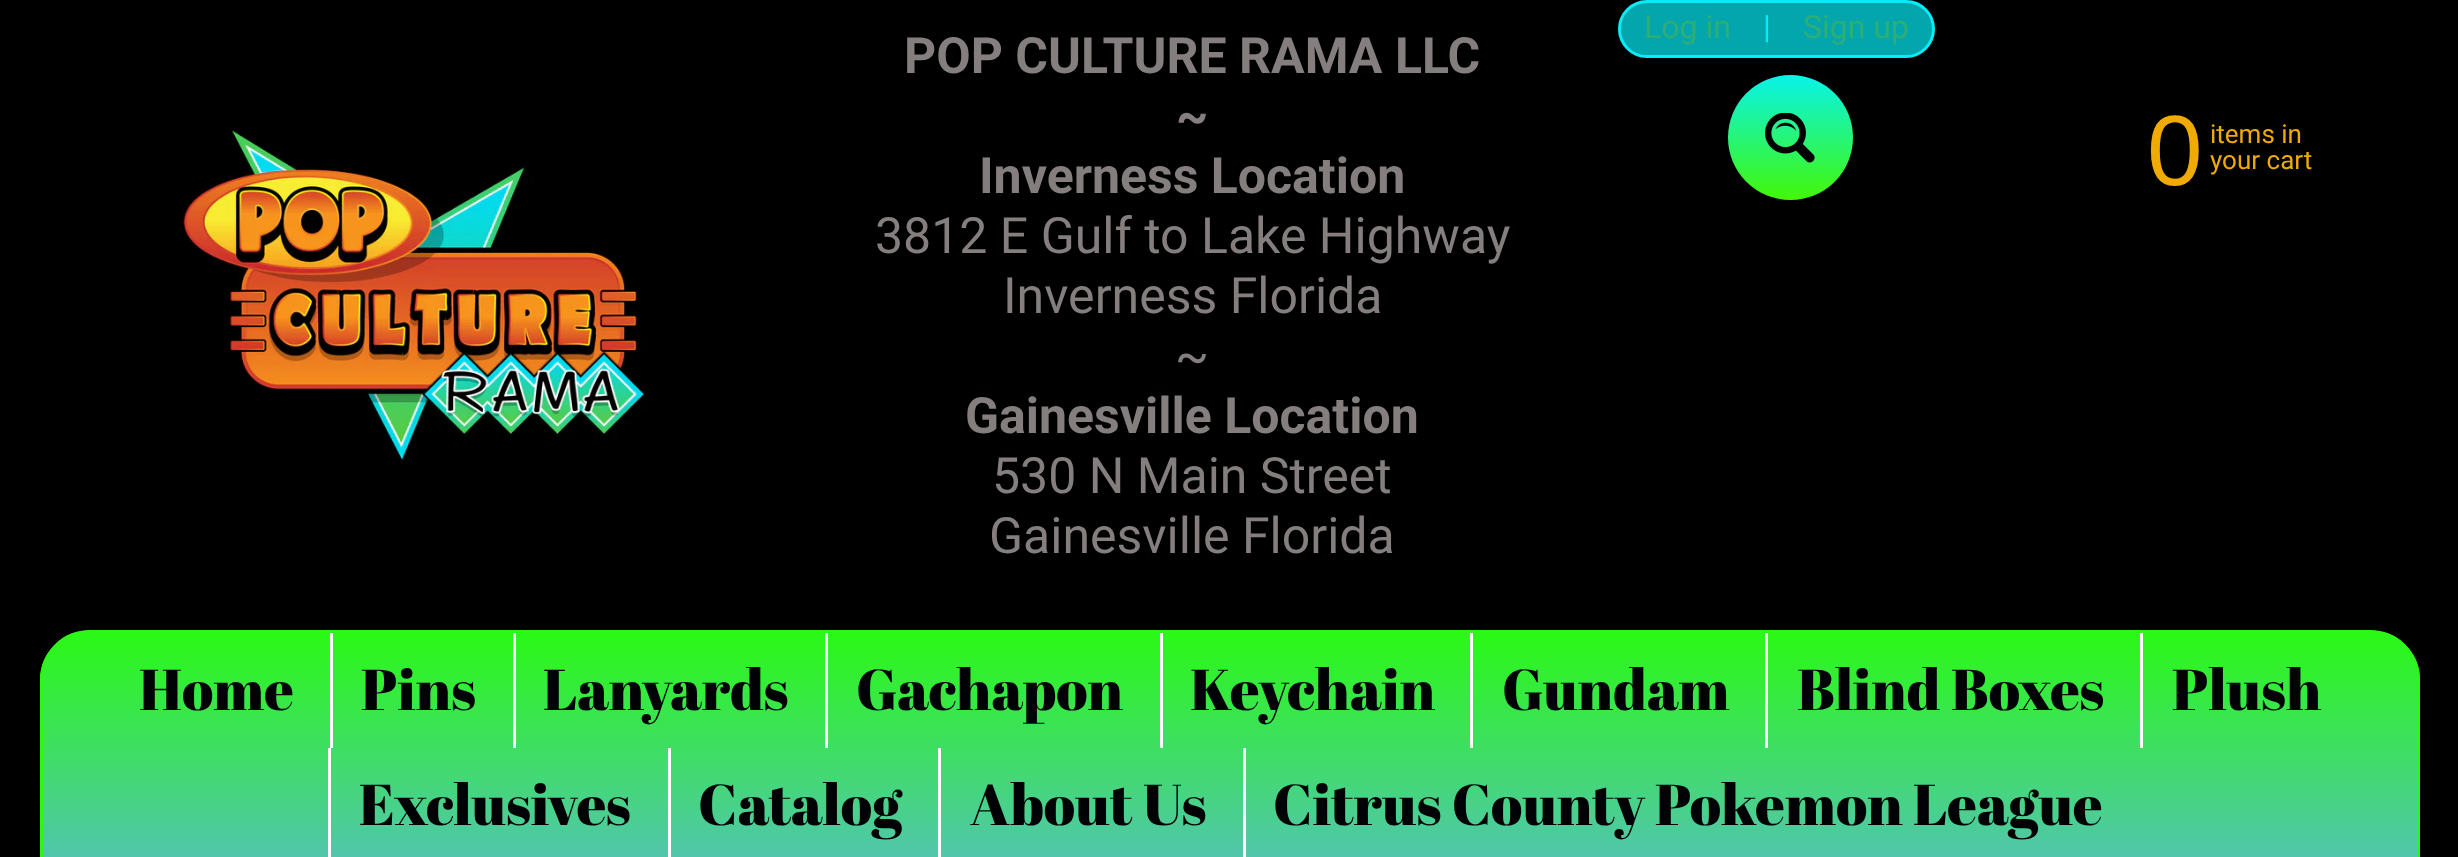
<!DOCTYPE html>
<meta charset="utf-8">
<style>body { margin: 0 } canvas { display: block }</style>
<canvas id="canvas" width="2458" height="857"></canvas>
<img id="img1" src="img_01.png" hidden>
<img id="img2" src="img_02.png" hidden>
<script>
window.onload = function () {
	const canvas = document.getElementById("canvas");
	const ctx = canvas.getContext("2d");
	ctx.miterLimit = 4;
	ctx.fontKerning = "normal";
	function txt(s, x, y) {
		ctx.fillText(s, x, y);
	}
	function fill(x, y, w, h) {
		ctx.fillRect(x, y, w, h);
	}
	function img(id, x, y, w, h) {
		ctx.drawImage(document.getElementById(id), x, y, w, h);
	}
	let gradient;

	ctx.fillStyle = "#000000";
	fill(0, 0, 2458, 857);
	ctx.fillStyle = "#04A6AD";
	ctx.beginPath();
	ctx.roundRect(1619.5, 1.5, 314, 55, 27.5);
	ctx.fill();
	ctx.strokeStyle = "#06EDF7";
	ctx.lineWidth = 3;
	ctx.stroke();
	img("img1", 182, 130, 465, 331);
	gradient = ctx.createLinearGradient(1790, 75, 1790, 200);
	gradient.addColorStop(0, "#09F3EA");
	gradient.addColorStop(1, "#43F707");
	ctx.fillStyle = gradient;
	ctx.beginPath();
	ctx.arc(1790.5, 137.5, 62.5, 0, Math.PI * 2);
	ctx.fill();
	img("img2", 1765, 113, 50, 50);
	ctx.save();
	ctx.beginPath();
	ctx.roundRect(40, 630, 2380, 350, 50);
	ctx.clip();
	gradient = ctx.createLinearGradient(1230, 632, 1230, 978);
	gradient.addColorStop(0, "#2BF816");
	gradient.addColorStop(1, "#66ABFC");
	ctx.fillStyle = gradient;
	fill(40, 633, 2380, 224);
	ctx.restore();
	ctx.beginPath();
	ctx.roundRect(41.5, 631.5, 2377, 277, 48.5);
	ctx.strokeStyle = "#2BF816";
	ctx.stroke();
	ctx.fillStyle = "#FFFFFF";
	fill(330, 633, 3, 115);
	fill(513, 633, 3, 115);
	fill(825, 633, 3, 115);
	fill(1160, 633, 3, 115);
	fill(1470, 633, 3, 115);
	fill(1765, 633, 3, 115);
	fill(2140, 633, 3, 115);
	fill(328, 748, 3, 109);
	fill(668, 748, 3, 109);
	fill(938, 748, 3, 109);
	fill(1243, 748, 3, 109);
	ctx.font = "32px Roboto";
	ctx.fillStyle = "#2EAE77";
	txt("Log in", 1644, 38);
	ctx.fillStyle = "#06EDF7";
	txt("|", 1763, 38);
	ctx.fillStyle = "#2EAE77";
	txt("Sign up", 1803, 38);
	ctx.font = "bold 50px Roboto";
	ctx.fillStyle = "#847E7E";
	txt("POP CULTURE RAMA LLC", 904, 73);
	txt("~", 1176, 133);
	txt("Inverness Location", 979, 193);
	ctx.font = "50px Roboto";
	txt("3812 E Gulf to Lake Highway", 875, 253);
	txt("Inverness Florida", 1003, 313);
	txt("~", 1175, 373);
	ctx.font = "bold 50px Roboto";
	txt("Gainesville Location", 965, 433);
	ctx.font = "50px Roboto";
	txt("530 N Main Street", 992, 493);
	txt("Gainesville Florida", 989, 553);
	ctx.font = "100px Liberation Sans";
	ctx.fillStyle = "#F0AA04";
	txt("0", 2147, 185);
	ctx.font = "26px Roboto";
	txt("items in", 2210, 143);
	txt("your cart", 2210, 169);
	ctx.font = "57.5px Abril Fatface";
	ctx.fillStyle = "#010205";
	txt("Home", 139, 710);
	txt("Pins", 361, 710);
	txt("Lanyards", 543, 710);
	txt("Gachapon", 856, 710);
	txt("Keychain", 1190, 710);
	txt("Gundam", 1502, 710);
	txt("Blind Boxes", 1797, 710);
	txt("Plush", 2172, 710);
	txt("Exclusives", 359, 825);
	txt("Catalog", 698, 825);
	txt("About Us", 970, 825);
	txt("Citrus County Pokemon League", 1273, 825);
};
</script>
